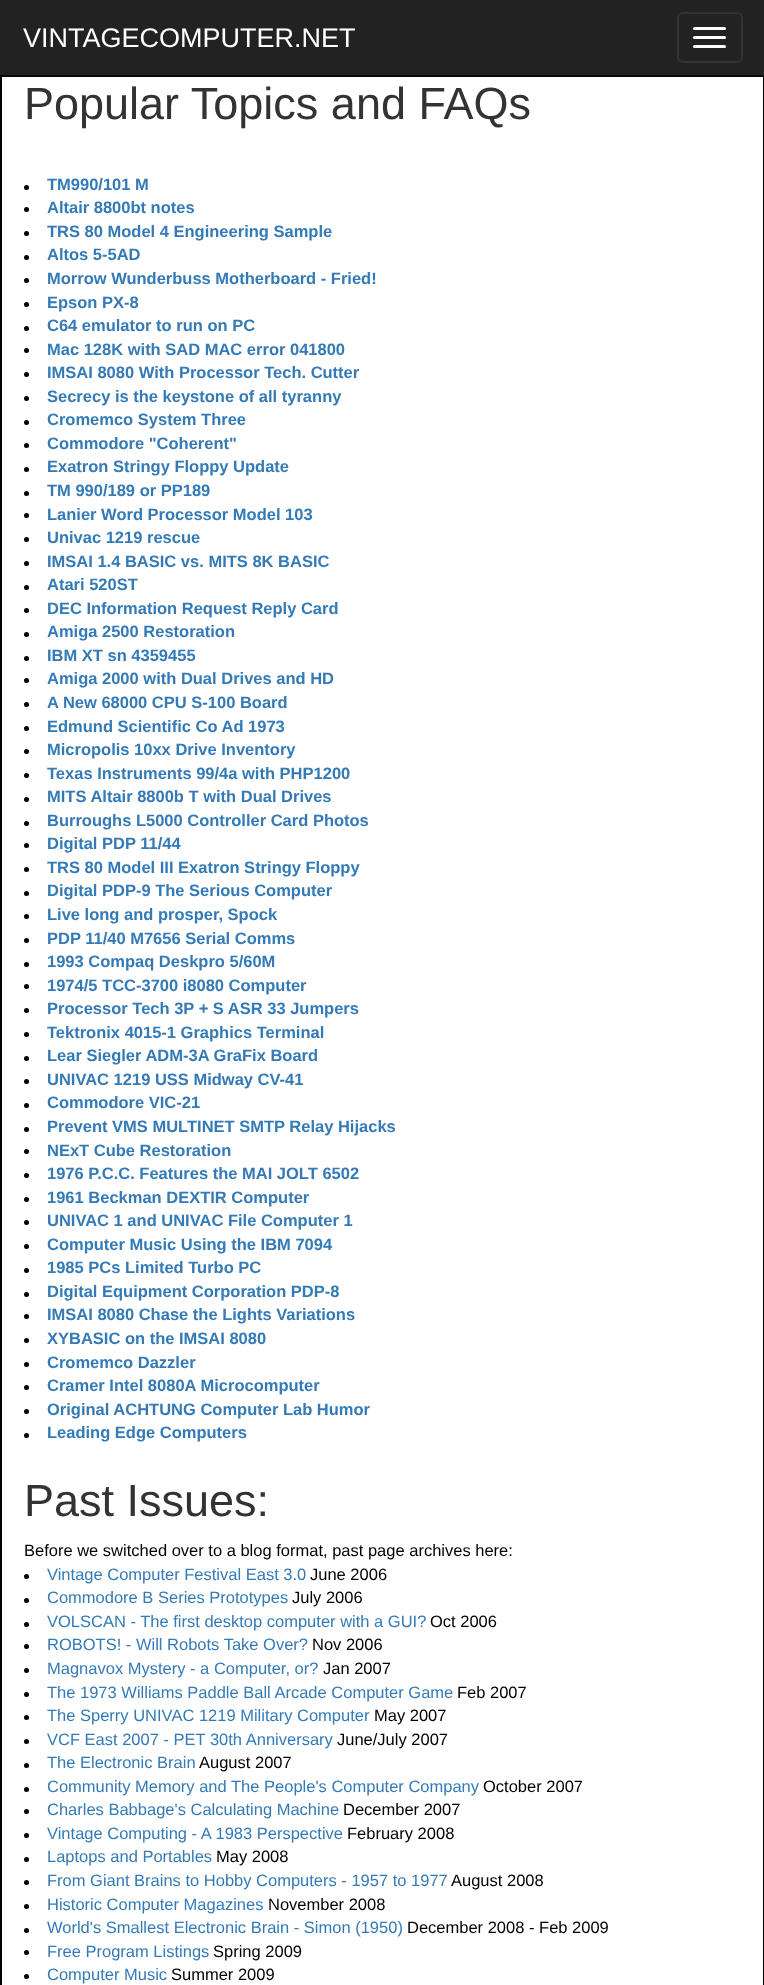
<!DOCTYPE html>
<meta charset="utf-8">
<style>body { margin: 0 } canvas { display: block }</style>
<canvas id="canvas" width="764" height="1985"></canvas>
<script>
window.onload = function () {
	const canvas = document.getElementById("canvas");
	const ctx = canvas.getContext("2d");
	ctx.miterLimit = 4;
	ctx.fontKerning = "normal";
	function txt(s, x, y) {
		ctx.fillText(s, x, y);
	}
	function fill(x, y, w, h) {
		ctx.fillRect(x, y, w, h);
	}
	function round(x, y, w, h, r) {
		ctx.beginPath();
		ctx.roundRect(x, y, w, h, r);
		ctx.fill();
	}

	ctx.fillStyle = "#FFFFFF";
	fill(0, 0, 764, 1985);
	ctx.strokeStyle = "#000000";
	ctx.lineWidth = 2;
	ctx.strokeRect(1, -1, 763, 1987);
	ctx.fillStyle = "#222222";
	fill(0, 0, 764, 75);
	ctx.fillStyle = "#080808";
	fill(0, 75, 764, 2);
	ctx.beginPath();
	ctx.roundRect(678, 13, 64, 49, 5);
	ctx.strokeStyle = "#333333";
	ctx.stroke();
	ctx.fillStyle = "#FFFFFF";
	round(693, 27, 33, 3, 1.5);
	round(693, 36, 33, 3, 1.5);
	round(693, 45, 33, 3, 1.5);
	ctx.fillStyle = "#000000";
	ctx.beginPath();
	ctx.arc(26.5, 187.5, 2.5, 0, Math.PI * 2);
	ctx.fill();
	ctx.beginPath();
	ctx.arc(26.5, 209.5, 2.5, 0, Math.PI * 2);
	ctx.fill();
	ctx.beginPath();
	ctx.arc(26.5, 233.5, 2.5, 0, Math.PI * 2);
	ctx.fill();
	ctx.beginPath();
	ctx.arc(26.5, 257.5, 2.5, 0, Math.PI * 2);
	ctx.fill();
	ctx.beginPath();
	ctx.arc(26.5, 280.5, 2.5, 0, Math.PI * 2);
	ctx.fill();
	ctx.beginPath();
	ctx.arc(26.5, 304.5, 2.5, 0, Math.PI * 2);
	ctx.fill();
	ctx.beginPath();
	ctx.arc(26.5, 328.5, 2.5, 0, Math.PI * 2);
	ctx.fill();
	ctx.beginPath();
	ctx.arc(26.5, 350.5, 2.5, 0, Math.PI * 2);
	ctx.fill();
	ctx.beginPath();
	ctx.arc(26.5, 374.5, 2.5, 0, Math.PI * 2);
	ctx.fill();
	ctx.beginPath();
	ctx.arc(26.5, 398.5, 2.5, 0, Math.PI * 2);
	ctx.fill();
	ctx.beginPath();
	ctx.arc(26.5, 422.5, 2.5, 0, Math.PI * 2);
	ctx.fill();
	ctx.beginPath();
	ctx.arc(26.5, 445.5, 2.5, 0, Math.PI * 2);
	ctx.fill();
	ctx.beginPath();
	ctx.arc(26.5, 469.5, 2.5, 0, Math.PI * 2);
	ctx.fill();
	ctx.beginPath();
	ctx.arc(26.5, 493.5, 2.5, 0, Math.PI * 2);
	ctx.fill();
	ctx.beginPath();
	ctx.arc(26.5, 515.5, 2.5, 0, Math.PI * 2);
	ctx.fill();
	ctx.beginPath();
	ctx.arc(26.5, 539.5, 2.5, 0, Math.PI * 2);
	ctx.fill();
	ctx.beginPath();
	ctx.arc(26.5, 563.5, 2.5, 0, Math.PI * 2);
	ctx.fill();
	ctx.beginPath();
	ctx.arc(26.5, 587.5, 2.5, 0, Math.PI * 2);
	ctx.fill();
	ctx.beginPath();
	ctx.arc(26.5, 610.5, 2.5, 0, Math.PI * 2);
	ctx.fill();
	ctx.beginPath();
	ctx.arc(26.5, 634.5, 2.5, 0, Math.PI * 2);
	ctx.fill();
	ctx.beginPath();
	ctx.arc(26.5, 658.5, 2.5, 0, Math.PI * 2);
	ctx.fill();
	ctx.beginPath();
	ctx.arc(26.5, 680.5, 2.5, 0, Math.PI * 2);
	ctx.fill();
	ctx.beginPath();
	ctx.arc(26.5, 704.5, 2.5, 0, Math.PI * 2);
	ctx.fill();
	ctx.beginPath();
	ctx.arc(26.5, 728.5, 2.5, 0, Math.PI * 2);
	ctx.fill();
	ctx.beginPath();
	ctx.arc(26.5, 751.5, 2.5, 0, Math.PI * 2);
	ctx.fill();
	ctx.beginPath();
	ctx.arc(26.5, 775.5, 2.5, 0, Math.PI * 2);
	ctx.fill();
	ctx.beginPath();
	ctx.arc(26.5, 799.5, 2.5, 0, Math.PI * 2);
	ctx.fill();
	ctx.beginPath();
	ctx.arc(26.5, 823.5, 2.5, 0, Math.PI * 2);
	ctx.fill();
	ctx.beginPath();
	ctx.arc(26.5, 845.5, 2.5, 0, Math.PI * 2);
	ctx.fill();
	ctx.beginPath();
	ctx.arc(26.5, 869.5, 2.5, 0, Math.PI * 2);
	ctx.fill();
	ctx.beginPath();
	ctx.arc(26.5, 893.5, 2.5, 0, Math.PI * 2);
	ctx.fill();
	ctx.beginPath();
	ctx.arc(26.5, 916.5, 2.5, 0, Math.PI * 2);
	ctx.fill();
	ctx.beginPath();
	ctx.arc(26.5, 940.5, 2.5, 0, Math.PI * 2);
	ctx.fill();
	ctx.beginPath();
	ctx.arc(26.5, 964.5, 2.5, 0, Math.PI * 2);
	ctx.fill();
	ctx.beginPath();
	ctx.arc(26.5, 986.5, 2.5, 0, Math.PI * 2);
	ctx.fill();
	ctx.beginPath();
	ctx.arc(26.5, 1010.5, 2.5, 0, Math.PI * 2);
	ctx.fill();
	ctx.beginPath();
	ctx.arc(26.5, 1034.5, 2.5, 0, Math.PI * 2);
	ctx.fill();
	ctx.beginPath();
	ctx.arc(26.5, 1058.5, 2.5, 0, Math.PI * 2);
	ctx.fill();
	ctx.beginPath();
	ctx.arc(26.5, 1081.5, 2.5, 0, Math.PI * 2);
	ctx.fill();
	ctx.beginPath();
	ctx.arc(26.5, 1105.5, 2.5, 0, Math.PI * 2);
	ctx.fill();
	ctx.beginPath();
	ctx.arc(26.5, 1129.5, 2.5, 0, Math.PI * 2);
	ctx.fill();
	ctx.beginPath();
	ctx.arc(26.5, 1151.5, 2.5, 0, Math.PI * 2);
	ctx.fill();
	ctx.beginPath();
	ctx.arc(26.5, 1175.5, 2.5, 0, Math.PI * 2);
	ctx.fill();
	ctx.beginPath();
	ctx.arc(26.5, 1199.5, 2.5, 0, Math.PI * 2);
	ctx.fill();
	ctx.beginPath();
	ctx.arc(26.5, 1222.5, 2.5, 0, Math.PI * 2);
	ctx.fill();
	ctx.beginPath();
	ctx.arc(26.5, 1246.5, 2.5, 0, Math.PI * 2);
	ctx.fill();
	ctx.beginPath();
	ctx.arc(26.5, 1270.5, 2.5, 0, Math.PI * 2);
	ctx.fill();
	ctx.beginPath();
	ctx.arc(26.5, 1294.5, 2.5, 0, Math.PI * 2);
	ctx.fill();
	ctx.beginPath();
	ctx.arc(26.5, 1316.5, 2.5, 0, Math.PI * 2);
	ctx.fill();
	ctx.beginPath();
	ctx.arc(26.5, 1340.5, 2.5, 0, Math.PI * 2);
	ctx.fill();
	ctx.beginPath();
	ctx.arc(26.5, 1364.5, 2.5, 0, Math.PI * 2);
	ctx.fill();
	ctx.beginPath();
	ctx.arc(26.5, 1387.5, 2.5, 0, Math.PI * 2);
	ctx.fill();
	ctx.beginPath();
	ctx.arc(26.5, 1411.5, 2.5, 0, Math.PI * 2);
	ctx.fill();
	ctx.beginPath();
	ctx.arc(26.5, 1435.5, 2.5, 0, Math.PI * 2);
	ctx.fill();
	ctx.beginPath();
	ctx.arc(26.5, 1576.5, 2.5, 0, Math.PI * 2);
	ctx.fill();
	ctx.beginPath();
	ctx.arc(26.5, 1600.5, 2.5, 0, Math.PI * 2);
	ctx.fill();
	ctx.beginPath();
	ctx.arc(26.5, 1624.5, 2.5, 0, Math.PI * 2);
	ctx.fill();
	ctx.beginPath();
	ctx.arc(26.5, 1646.5, 2.5, 0, Math.PI * 2);
	ctx.fill();
	ctx.beginPath();
	ctx.arc(26.5, 1670.5, 2.5, 0, Math.PI * 2);
	ctx.fill();
	ctx.beginPath();
	ctx.arc(26.5, 1694.5, 2.5, 0, Math.PI * 2);
	ctx.fill();
	ctx.beginPath();
	ctx.arc(26.5, 1717.5, 2.5, 0, Math.PI * 2);
	ctx.fill();
	ctx.beginPath();
	ctx.arc(26.5, 1741.5, 2.5, 0, Math.PI * 2);
	ctx.fill();
	ctx.beginPath();
	ctx.arc(26.5, 1765.5, 2.5, 0, Math.PI * 2);
	ctx.fill();
	ctx.beginPath();
	ctx.arc(26.5, 1789.5, 2.5, 0, Math.PI * 2);
	ctx.fill();
	ctx.beginPath();
	ctx.arc(26.5, 1811.5, 2.5, 0, Math.PI * 2);
	ctx.fill();
	ctx.beginPath();
	ctx.arc(26.5, 1835.5, 2.5, 0, Math.PI * 2);
	ctx.fill();
	ctx.beginPath();
	ctx.arc(26.5, 1859.5, 2.5, 0, Math.PI * 2);
	ctx.fill();
	ctx.beginPath();
	ctx.arc(26.5, 1882.5, 2.5, 0, Math.PI * 2);
	ctx.fill();
	ctx.beginPath();
	ctx.arc(26.5, 1906.5, 2.5, 0, Math.PI * 2);
	ctx.fill();
	ctx.beginPath();
	ctx.arc(26.5, 1930.5, 2.5, 0, Math.PI * 2);
	ctx.fill();
	ctx.beginPath();
	ctx.arc(26.5, 1952.5, 2.5, 0, Math.PI * 2);
	ctx.fill();
	ctx.beginPath();
	ctx.arc(26.5, 1976.5, 2.5, 0, Math.PI * 2);
	ctx.fill();
	ctx.font = "27px Liberation Sans";
	ctx.fillStyle = "#FFFFFF";
	txt("VINTAGECOMPUTER.NET", 23, 47);
	ctx.font = "45px Liberation Sans";
	ctx.fillStyle = "#333333";
	txt("Popular Topics and FAQs", 24, 119);
	ctx.font = "bold 16.5px Liberation Sans";
	ctx.fillStyle = "#337AB7";
	txt("TM990/101 M", 47, 190);
	txt("Altair 8800bt notes", 47, 213);
	txt("TRS 80 Model 4 Engineering Sample", 47, 237);
	txt("Altos 5-5AD", 47, 260);
	txt("Morrow Wunderbuss Motherboard - Fried!", 47, 284);
	txt("Epson PX-8", 47, 308);
	txt("C64 emulator to run on PC", 47, 331);
	txt("Mac 128K with SAD MAC error 041800", 47, 355);
	txt("IMSAI 8080 With Processor Tech. Cutter", 47, 378);
	txt("Secrecy is the keystone of all tyranny", 47, 402);
	txt("Cromemco System Three", 47, 425);
	txt("Commodore \"Coherent\"", 47, 449);
	txt("Exatron Stringy Floppy Update", 47, 472);
	txt("TM 990/189 or PP189", 47, 496);
	txt("Lanier Word Processor Model 103", 47, 520);
	txt("Univac 1219 rescue", 47, 543);
	txt("IMSAI 1.4 BASIC vs. MITS 8K BASIC", 47, 567);
	txt("Atari 520ST", 47, 590);
	txt("DEC Information Request Reply Card", 47, 614);
	txt("Amiga 2500 Restoration", 47, 637);
	txt("IBM XT sn 4359455", 47, 661);
	txt("Amiga 2000 with Dual Drives and HD", 47, 684);
	txt("A New 68000 CPU S-100 Board", 47, 708);
	txt("Edmund Scientific Co Ad 1973", 47, 732);
	txt("Micropolis 10xx Drive Inventory", 47, 755);
	txt("Texas Instruments 99/4a with PHP1200", 47, 779);
	txt("MITS Altair 8800b T with Dual Drives", 47, 802);
	txt("Burroughs L5000 Controller Card Photos", 47, 826);
	txt("Digital PDP 11/44", 47, 849);
	txt("TRS 80 Model III Exatron Stringy Floppy", 47, 873);
	txt("Digital PDP-9 The Serious Computer", 47, 896);
	txt("Live long and prosper, Spock", 47, 920);
	txt("PDP 11/40 M7656 Serial Comms", 47, 944);
	txt("1993 Compaq Deskpro 5/60M", 47, 967);
	txt("1974/5 TCC-3700 i8080 Computer", 47, 991);
	txt("Processor Tech 3P + S ASR 33 Jumpers", 47, 1014);
	txt("Tektronix 4015-1 Graphics Terminal", 47, 1038);
	txt("Lear Siegler ADM-3A GraFix Board", 47, 1061);
	txt("UNIVAC 1219 USS Midway CV-41", 47, 1085);
	txt("Commodore VIC-21", 47, 1108);
	txt("Prevent VMS MULTINET SMTP Relay Hijacks", 47, 1132);
	txt("NExT Cube Restoration", 47, 1156);
	txt("1976 P.C.C. Features the MAI JOLT 6502", 47, 1179);
	txt("1961 Beckman DEXTIR Computer", 47, 1203);
	txt("UNIVAC 1 and UNIVAC File Computer 1", 47, 1226);
	txt("Computer Music Using the IBM 7094", 47, 1250);
	txt("1985 PCs Limited Turbo PC", 47, 1273);
	txt("Digital Equipment Corporation PDP-8", 47, 1297);
	txt("IMSAI 8080 Chase the Lights Variations", 47, 1320);
	txt("XYBASIC on the IMSAI 8080", 47, 1344);
	txt("Cromemco Dazzler", 47, 1368);
	txt("Cramer Intel 8080A Microcomputer", 47, 1391);
	txt("Original ACHTUNG Computer Lab Humor", 47, 1415);
	txt("Leading Edge Computers", 47, 1438);
	ctx.font = "45px Liberation Sans";
	ctx.fillStyle = "#333333";
	txt("Past Issues:", 24, 1516);
	ctx.font = "16.5px Liberation Sans";
	ctx.fillStyle = "#000000";
	txt("Before we switched over to a blog format, past page archives here:", 24, 1556);
	ctx.fillStyle = "#337AB7";
	txt("Vintage Computer Festival East 3.0", 47, 1580);
	ctx.fillStyle = "#000000";
	txt("June 2006", 310, 1580);
	ctx.fillStyle = "#337AB7";
	txt("Commodore B Series Prototypes", 47, 1603);
	ctx.fillStyle = "#000000";
	txt("July 2006", 292, 1603);
	ctx.fillStyle = "#337AB7";
	txt("VOLSCAN - The first desktop computer with a GUI?", 47, 1627);
	ctx.fillStyle = "#000000";
	txt("Oct 2006", 430, 1627);
	ctx.fillStyle = "#337AB7";
	txt("ROBOTS! - Will Robots Take Over?", 47, 1650);
	ctx.fillStyle = "#000000";
	txt("Nov 2006", 312, 1650);
	ctx.fillStyle = "#337AB7";
	txt("Magnavox Mystery - a Computer, or?", 47, 1674);
	ctx.fillStyle = "#000000";
	txt("Jan 2007", 323, 1674);
	ctx.fillStyle = "#337AB7";
	txt("The 1973 Williams Paddle Ball Arcade Computer Game", 47, 1698);
	ctx.fillStyle = "#000000";
	txt("Feb 2007", 457, 1698);
	ctx.fillStyle = "#337AB7";
	txt("The Sperry UNIVAC 1219 Military Computer", 47, 1721);
	ctx.fillStyle = "#000000";
	txt("May 2007", 374, 1721);
	ctx.fillStyle = "#337AB7";
	txt("VCF East 2007 - PET 30th Anniversary", 47, 1745);
	ctx.fillStyle = "#000000";
	txt("June/July 2007", 337, 1745);
	ctx.fillStyle = "#337AB7";
	txt("The Electronic Brain", 47, 1768);
	ctx.fillStyle = "#000000";
	txt("August 2007", 199, 1768);
	ctx.fillStyle = "#337AB7";
	txt("Community Memory and The People's Computer Company", 47, 1792);
	ctx.fillStyle = "#000000";
	txt("October 2007", 483, 1792);
	ctx.fillStyle = "#337AB7";
	txt("Charles Babbage's Calculating Machine", 47, 1815);
	ctx.fillStyle = "#000000";
	txt("December 2007", 343, 1815);
	ctx.fillStyle = "#337AB7";
	txt("Vintage Computing - A 1983 Perspective", 47, 1839);
	ctx.fillStyle = "#000000";
	txt("February 2008", 347, 1839);
	ctx.fillStyle = "#337AB7";
	txt("Laptops and Portables", 47, 1862);
	ctx.fillStyle = "#000000";
	txt("May 2008", 216, 1862);
	ctx.fillStyle = "#337AB7";
	txt("From Giant Brains to Hobby Computers - 1957 to 1977", 47, 1886);
	ctx.fillStyle = "#000000";
	txt("August 2008", 451, 1886);
	ctx.fillStyle = "#337AB7";
	txt("Historic Computer Magazines", 47, 1910);
	ctx.fillStyle = "#000000";
	txt("November 2008", 268, 1910);
	ctx.fillStyle = "#337AB7";
	txt("World's Smallest Electronic Brain - Simon (1950)", 47, 1933);
	ctx.fillStyle = "#000000";
	txt("December 2008 - Feb 2009", 407, 1933);
	ctx.fillStyle = "#337AB7";
	txt("Free Program Listings", 47, 1957);
	ctx.fillStyle = "#000000";
	txt("Spring 2009", 213, 1957);
	ctx.fillStyle = "#337AB7";
	txt("Computer Music", 47, 1980);
	ctx.fillStyle = "#000000";
	txt("Summer 2009", 171, 1980);
};
</script>
